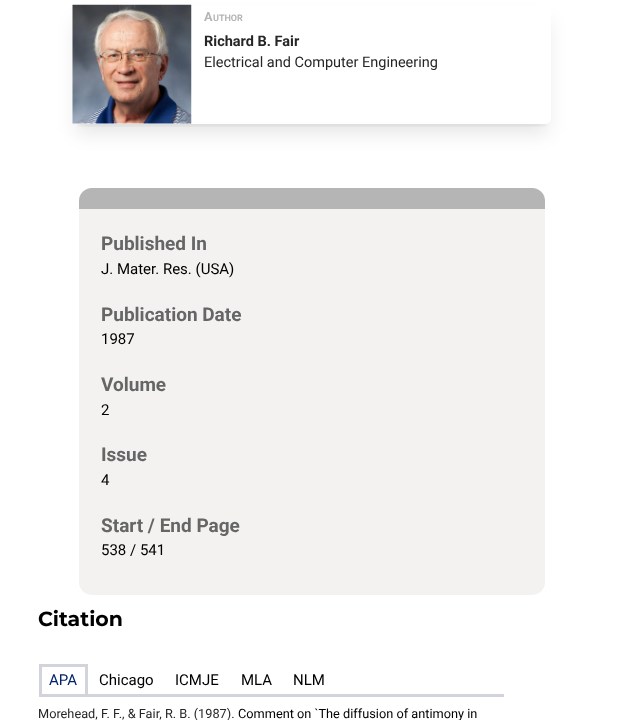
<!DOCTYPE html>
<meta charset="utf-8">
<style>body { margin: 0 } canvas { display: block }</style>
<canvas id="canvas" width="623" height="720"></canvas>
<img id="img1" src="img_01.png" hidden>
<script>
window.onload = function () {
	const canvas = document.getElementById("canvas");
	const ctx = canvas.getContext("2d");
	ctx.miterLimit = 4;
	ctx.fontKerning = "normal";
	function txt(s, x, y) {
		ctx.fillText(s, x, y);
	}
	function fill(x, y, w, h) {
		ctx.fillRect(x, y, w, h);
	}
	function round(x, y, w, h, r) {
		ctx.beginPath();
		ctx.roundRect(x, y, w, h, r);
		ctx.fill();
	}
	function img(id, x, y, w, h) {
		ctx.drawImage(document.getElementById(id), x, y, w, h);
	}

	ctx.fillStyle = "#FFFFFF";
	fill(0, 0, 623, 720);
	ctx.save();
	ctx.beginPath();
	ctx.rect(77, 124, 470, 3);
	ctx.clip();
	ctx.fillStyle = "rgba(0, 0, 0, 0.1)";
	ctx.filter = "blur(4px)";
	ctx.beginPath();
	ctx.roundRect(78, 15, 468, 109, 1);
	ctx.fill();
	ctx.filter = "none";
	ctx.restore();
	ctx.save();
	ctx.beginPath();
	ctx.moveTo(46, 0);
	ctx.lineTo(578, 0);
	ctx.lineTo(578, 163);
	ctx.lineTo(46, 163);
	ctx.closePath();
	ctx.moveTo(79, 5);
	ctx.lineTo(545, 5);
	ctx.bezierCurveTo(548.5, 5, 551, 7.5, 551, 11);
	ctx.lineTo(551, 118);
	ctx.bezierCurveTo(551, 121.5, 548.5, 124, 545, 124);
	ctx.lineTo(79, 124);
	ctx.bezierCurveTo(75.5, 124, 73, 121.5, 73, 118);
	ctx.lineTo(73, 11);
	ctx.bezierCurveTo(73, 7.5, 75.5, 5, 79, 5);
	ctx.closePath();
	ctx.clip("evenodd");
	ctx.fillStyle = "rgba(0, 0, 0, 0.1)";
	ctx.filter = "blur(9.5px)";
	ctx.beginPath();
	ctx.roundRect(76, 21, 472, 112, 2.5);
	ctx.fill();
	ctx.filter = "none";
	ctx.restore();
	img("img1", 72, 4, 120, 120);
	ctx.fillStyle = "#F3F2F1";
	round(79, 188, 466, 407, 13);
	ctx.fillStyle = "#B5B5B5";
	ctx.beginPath();
	ctx.roundRect(79, 188, 466, 21, [13, 13, 0, 0]);
	ctx.fill();
	ctx.fillStyle = "#D1D5DB";
	fill(39, 664, 49, 3);
	fill(85, 664, 3, 32);
	fill(39, 664, 3, 32);
	fill(39, 694, 465, 3);
	ctx.font = "bold 12.75px Roboto";
	ctx.fillStyle = "#B5B5B5";
	txt("A", 204, 21);
	ctx.font = "bold 9px Roboto";
	txt("UTHOR", 213, 21);
	ctx.font = "bold 14.5px Roboto";
	ctx.fillStyle = "#262626";
	txt("Richard B. Fair", 204, 46);
	ctx.font = "14.5px Roboto";
	txt("Electrical and Computer Engineering", 204, 67);
	ctx.font = "bold 19px Roboto";
	ctx.fillStyle = "#666666";
	txt("Published In", 101, 250);
	ctx.font = "15px Roboto";
	ctx.fillStyle = "#000000";
	txt("J. Mater. Res. (USA)", 101, 274);
	ctx.font = "bold 19px Roboto";
	ctx.fillStyle = "#666666";
	txt("Publication Date", 101, 321);
	ctx.font = "15px Roboto";
	ctx.fillStyle = "#000000";
	txt("1987", 101, 344);
	ctx.font = "bold 19px Roboto";
	ctx.fillStyle = "#666666";
	txt("Volume", 101, 391);
	ctx.font = "15px Roboto";
	ctx.fillStyle = "#000000";
	txt("2", 101, 415);
	ctx.font = "bold 19px Roboto";
	ctx.fillStyle = "#666666";
	txt("Issue", 101, 461);
	ctx.font = "15px Roboto";
	ctx.fillStyle = "#000000";
	txt("4", 101, 485);
	ctx.font = "bold 19px Roboto";
	ctx.fillStyle = "#666666";
	txt("Start / End Page", 101, 532);
	ctx.font = "15px Roboto";
	ctx.fillStyle = "#000000";
	txt("538 / 541", 101, 555);
	ctx.font = "bold 20.5px Montserrat";
	txt("Citation", 38, 626);
	ctx.font = "15px Roboto";
	ctx.fillStyle = "#012169";
	txt("APA", 49, 685);
	ctx.fillStyle = "#000000";
	txt("Chicago", 99, 685);
	txt("ICMJE", 175, 685);
	txt("MLA", 241, 685);
	txt("NLM", 293, 685);
	ctx.font = "12.75px Roboto";
	ctx.fillStyle = "#262626";
	txt("Morehead, F. F., & Fair, R. B. (1987).", 38, 718);
	ctx.fillStyle = "#000000";
	txt("Comment on `The diffusion of antimony in", 238, 718);
};
</script>
